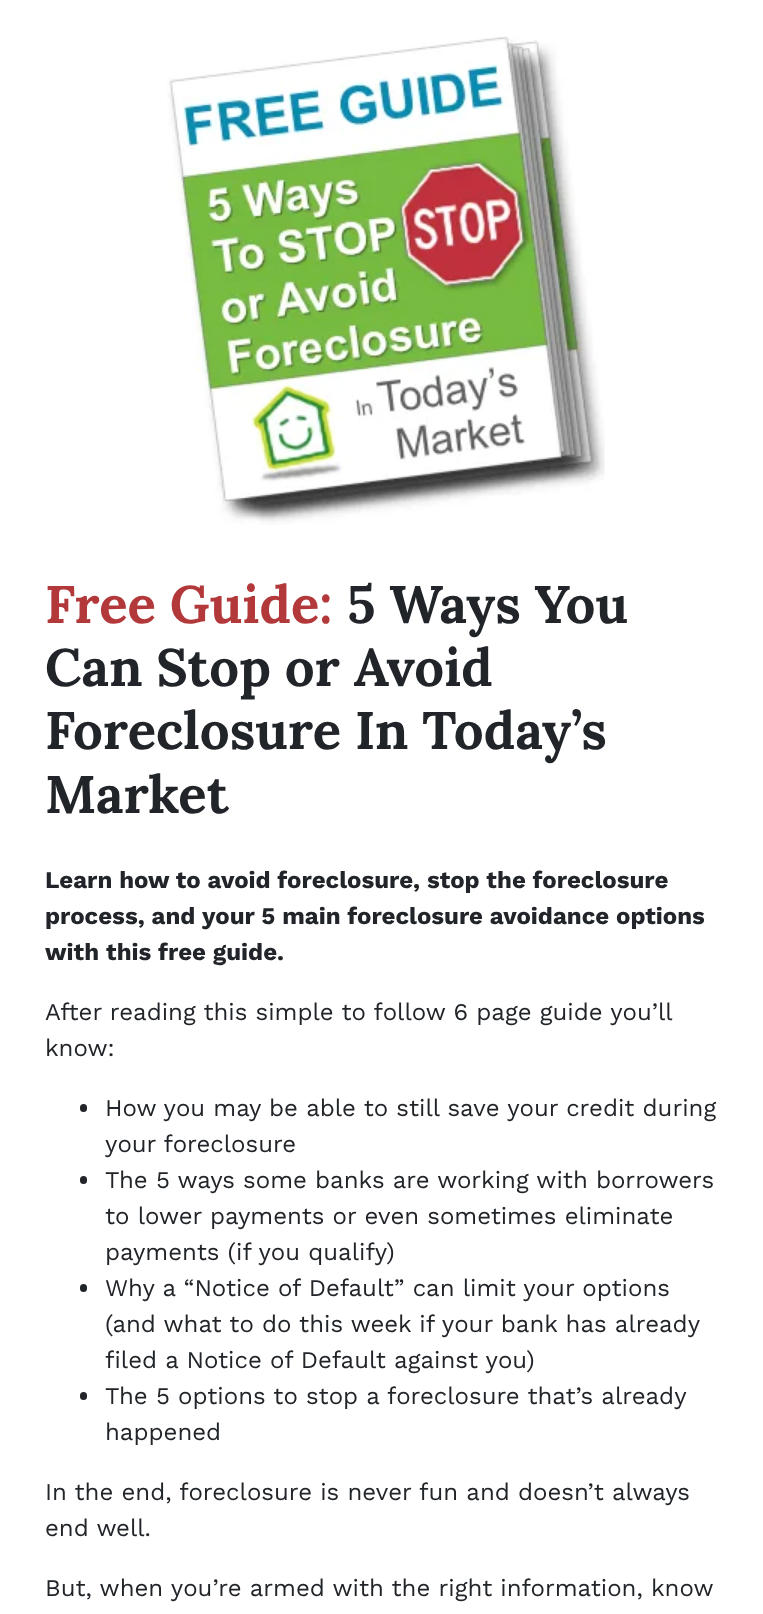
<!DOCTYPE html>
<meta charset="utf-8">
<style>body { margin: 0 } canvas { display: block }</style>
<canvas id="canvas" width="763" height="1614"></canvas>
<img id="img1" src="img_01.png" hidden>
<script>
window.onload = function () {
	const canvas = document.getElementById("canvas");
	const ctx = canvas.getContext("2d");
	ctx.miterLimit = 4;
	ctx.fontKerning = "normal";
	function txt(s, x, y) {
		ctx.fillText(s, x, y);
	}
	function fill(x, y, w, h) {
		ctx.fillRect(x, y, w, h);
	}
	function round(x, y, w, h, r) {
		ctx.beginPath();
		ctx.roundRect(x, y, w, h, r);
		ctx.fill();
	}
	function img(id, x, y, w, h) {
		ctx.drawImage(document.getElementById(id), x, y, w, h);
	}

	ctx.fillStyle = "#FFFFFF";
	fill(0, 0, 763, 1614);
	img("img1", 167, 36, 438, 489);
	ctx.fillStyle = "#212529";
	round(80, 1104, 7, 8, 3.5);
	round(80, 1176, 7, 8, 3.5);
	round(80, 1284, 7, 8, 3.5);
	round(80, 1392, 7, 8, 3.5);
	ctx.font = "bold 52.75px Lora";
	ctx.fillStyle = "#B2383A";
	txt("Free Guide:", 45, 623);
	ctx.fillStyle = "#212529";
	txt("5 Ways You", 347, 623);
	txt("Can Stop or Avoid", 45, 686);
	txt("Foreclosure In Today’s", 45, 749);
	txt("Market", 45, 813);
	ctx.font = "bold 24px Work Sans";
	txt("Learn how to avoid foreclosure, stop the foreclosure", 45, 888);
	txt("process, and your 5 main foreclosure avoidance options", 45, 924);
	txt("with this free guide.", 45, 960);
	ctx.font = "24px Work Sans";
	txt("After reading this simple to follow 6 page guide you’ll", 45, 1020);
	txt("know:", 45, 1056);
	txt("How you may be able to still save your credit during", 105, 1116);
	txt("your foreclosure", 105, 1152);
	txt("The 5 ways some banks are working with borrowers", 105, 1188);
	txt("to lower payments or even sometimes eliminate", 105, 1224);
	txt("payments (if you qualify)", 105, 1260);
	txt("Why a “Notice of Default” can limit your options", 105, 1296);
	txt("(and what to do this week if your bank has already", 105, 1332);
	txt("filed a Notice of Default against you)", 105, 1368);
	txt("The 5 options to stop a foreclosure that’s already", 105, 1404);
	txt("happened", 105, 1440);
	txt("In the end, foreclosure is never fun and doesn’t always", 45, 1500);
	txt("end well.", 45, 1536);
	txt("But, when you’re armed with the right information, know", 45, 1596);
};
</script>
